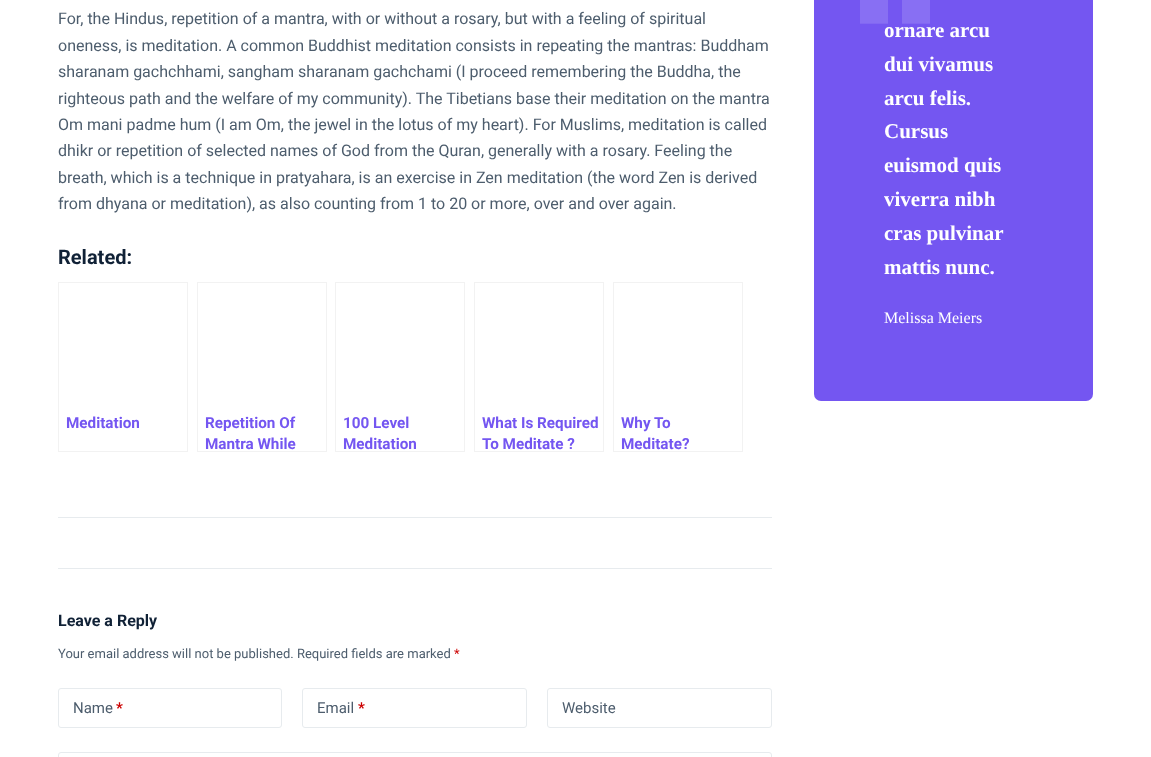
<!DOCTYPE html>
<meta charset="utf-8">
<style>body { margin: 0 } canvas { display: block }</style>
<canvas id="canvas" width="1151" height="757"></canvas>
<img id="img1" src="img_01.png" hidden>
<script>
window.onload = function () {
	const canvas = document.getElementById("canvas");
	const ctx = canvas.getContext("2d");
	ctx.miterLimit = 4;
	ctx.fontKerning = "normal";
	function txt(s, x, y) {
		ctx.fillText(s, x, y);
	}
	function fill(x, y, w, h) {
		ctx.fillRect(x, y, w, h);
	}
	function round(x, y, w, h, r) {
		ctx.beginPath();
		ctx.roundRect(x, y, w, h, r);
		ctx.fill();
	}
	function img(id, x, y, w, h) {
		ctx.drawImage(document.getElementById(id), x, y, w, h);
	}

	ctx.fillStyle = "#FFFFFF";
	fill(0, 0, 1151, 757);
	ctx.strokeStyle = "#F2F2F2";
	ctx.strokeRect(58.5, 282.5, 129, 169);
	ctx.strokeRect(197.5, 282.5, 129, 169);
	ctx.strokeRect(335.5, 282.5, 129, 169);
	ctx.strokeRect(474.5, 282.5, 129, 169);
	ctx.strokeRect(613.5, 282.5, 129, 169);
	ctx.fillStyle = "#E7EBEE";
	fill(58, 517, 714, 1);
	fill(58, 568, 714, 1);
	ctx.beginPath();
	ctx.roundRect(58.5, 688.5, 223, 39, 2.5);
	ctx.strokeStyle = "#E7EBEE";
	ctx.stroke();
	ctx.beginPath();
	ctx.roundRect(302.5, 688.5, 224, 39, 2.5);
	ctx.stroke();
	ctx.beginPath();
	ctx.roundRect(547.5, 688.5, 224, 39, 2.5);
	ctx.stroke();
	ctx.beginPath();
	ctx.roundRect(58.5, 752.5, 713, 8, 2.5);
	ctx.stroke();
	ctx.fillStyle = "#7456F1";
	round(814, -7, 279, 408, 7);
	img("img1", 860, 0, 70, 24);
	ctx.font = "16px Roboto";
	ctx.fillStyle = "#4D5D6D";
	txt("For, the Hindus, repetition of a mantra, with or without a rosary, but with a feeling of spiritual", 58, 24);
	txt("oneness, is meditation. A common Buddhist meditation consists in repeating the mantras: Buddham", 58, 51);
	txt("sharanam gachchhami, sangham sharanam gachchami (I proceed remembering the Buddha, the", 58, 77);
	txt("righteous path and the welfare of my community). The Tibetians base their meditation on the mantra", 58, 104);
	txt("Om mani padme hum (I am Om, the jewel in the lotus of my heart). For Muslims, meditation is called", 58, 130);
	txt("dhikr or repetition of selected names of God from the Quran, generally with a rosary. Feeling the", 58, 156);
	txt("breath, which is a technique in pratyahara, is an exercise in Zen meditation (the word Zen is derived", 58, 183);
	txt("from dhyana or meditation), as also counting from 1 to 20 or more, over and over again.", 58, 209);
	ctx.font = "bold 20px Roboto";
	ctx.fillStyle = "#102136";
	txt("Related:", 58, 264);
	ctx.font = "bold 15.25px Roboto";
	ctx.fillStyle = "#7456F1";
	txt("Meditation", 66, 428);
	txt("Repetition Of", 205, 428);
	txt("Mantra While", 205, 449);
	txt("100 Level", 343, 428);
	txt("Meditation", 343, 449);
	txt("What Is Required", 482, 428);
	txt("To Meditate ?", 482, 449);
	txt("Why To", 621, 428);
	txt("Meditate?", 621, 449);
	ctx.font = "bold 16px Roboto";
	ctx.fillStyle = "#102136";
	txt("Leave a Reply", 58, 626);
	ctx.font = "13px Roboto";
	ctx.fillStyle = "#4D5D6D";
	txt("Your email address will not be published. Required fields are marked", 58, 658);
	ctx.fillStyle = "#CC0000";
	txt("*", 454, 658);
	ctx.font = "15px Roboto";
	ctx.fillStyle = "#4D5D6D";
	txt("Name", 73, 713);
	ctx.font = "bold 15px Roboto";
	ctx.fillStyle = "#CC0000";
	txt("*", 116, 713);
	ctx.font = "15px Roboto";
	ctx.fillStyle = "#4D5D6D";
	txt("Email", 317, 713);
	ctx.font = "bold 15px Roboto";
	ctx.fillStyle = "#CC0000";
	txt("*", 358, 713);
	ctx.font = "15px Roboto";
	ctx.fillStyle = "#4D5D6D";
	txt("Website", 562, 713);
	ctx.font = "bold 21px Liberation Serif";
	ctx.fillStyle = "#FFFFFF";
	txt("ornare arcu", 884, 37);
	txt("dui vivamus", 884, 71);
	txt("arcu felis.", 884, 105);
	txt("Cursus", 884, 138);
	txt("euismod quis", 884, 172);
	txt("viverra nibh", 884, 206);
	txt("cras pulvinar", 884, 240);
	txt("mattis nunc.", 884, 274);
	ctx.font = "16px Liberation Serif";
	txt("Melissa Meiers", 884, 323);
};
</script>
